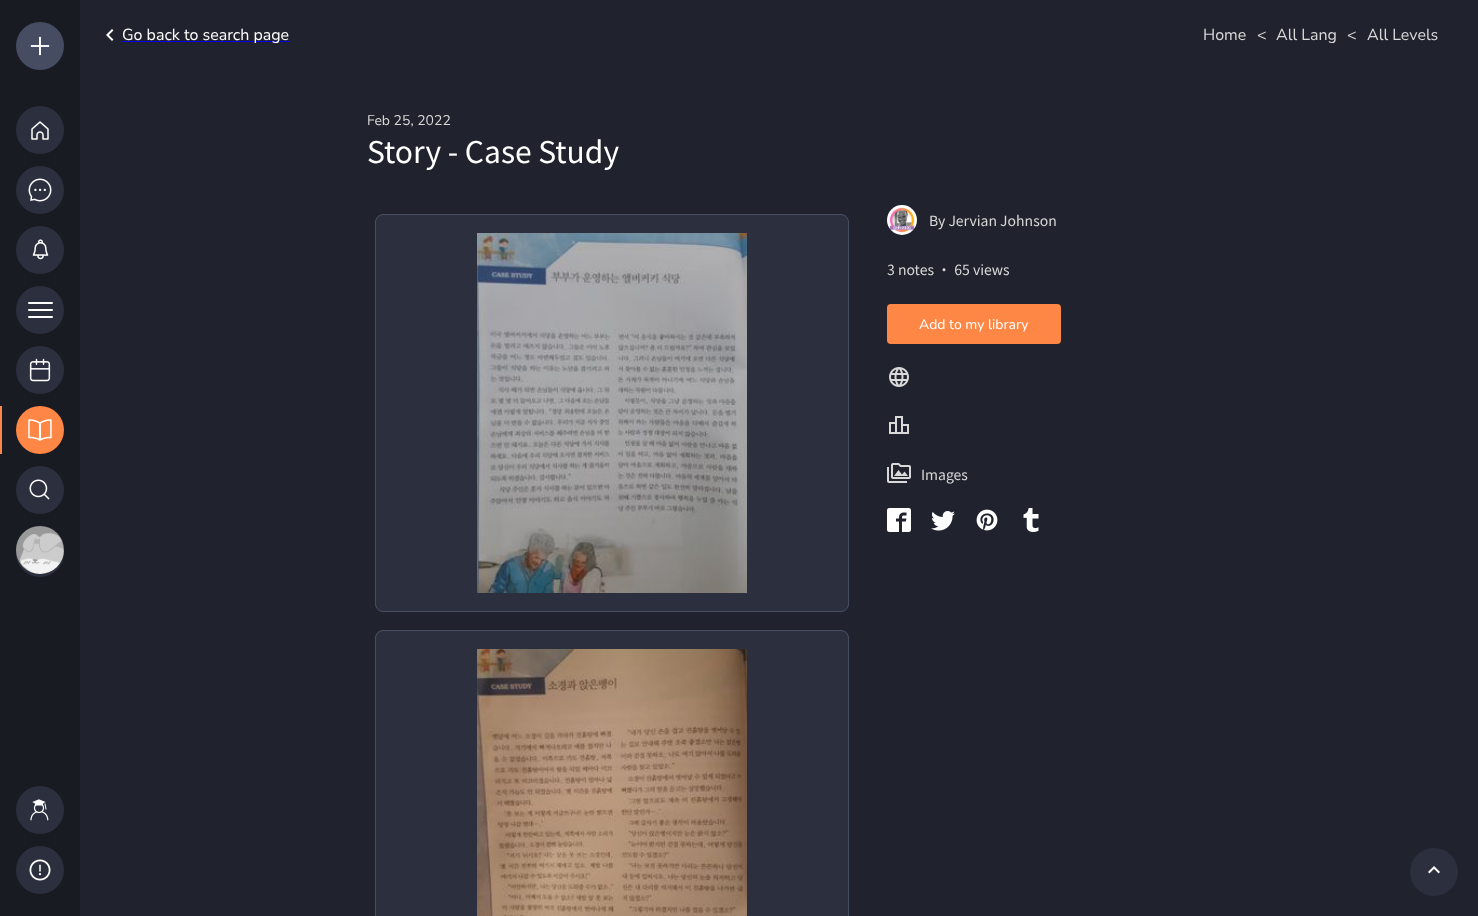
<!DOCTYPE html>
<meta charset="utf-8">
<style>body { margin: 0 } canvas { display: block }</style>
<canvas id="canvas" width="1478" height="916"></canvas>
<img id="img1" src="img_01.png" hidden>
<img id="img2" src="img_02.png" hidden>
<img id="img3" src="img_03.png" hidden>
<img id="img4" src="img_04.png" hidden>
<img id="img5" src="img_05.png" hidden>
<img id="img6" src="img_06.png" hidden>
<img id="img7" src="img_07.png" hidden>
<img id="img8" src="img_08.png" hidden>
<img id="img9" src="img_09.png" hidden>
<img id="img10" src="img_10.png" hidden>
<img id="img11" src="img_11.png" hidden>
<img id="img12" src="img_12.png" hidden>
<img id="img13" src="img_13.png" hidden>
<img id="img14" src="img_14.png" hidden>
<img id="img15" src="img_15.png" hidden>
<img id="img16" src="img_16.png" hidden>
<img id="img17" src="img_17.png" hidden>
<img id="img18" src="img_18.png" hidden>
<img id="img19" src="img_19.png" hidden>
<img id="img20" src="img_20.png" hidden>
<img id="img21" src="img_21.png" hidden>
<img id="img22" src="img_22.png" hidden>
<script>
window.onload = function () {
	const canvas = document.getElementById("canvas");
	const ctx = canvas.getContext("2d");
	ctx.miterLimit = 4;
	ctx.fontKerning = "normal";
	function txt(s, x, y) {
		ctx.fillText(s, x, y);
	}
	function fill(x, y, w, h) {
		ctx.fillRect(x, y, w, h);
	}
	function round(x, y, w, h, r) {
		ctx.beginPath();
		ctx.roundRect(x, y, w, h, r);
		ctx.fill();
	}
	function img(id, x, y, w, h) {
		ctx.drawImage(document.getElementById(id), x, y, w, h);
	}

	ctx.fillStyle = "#191B23";
	fill(0, 0, 1478, 916);
	ctx.fillStyle = "#464D63";
	ctx.beginPath();
	ctx.arc(40, 46, 24, 0, Math.PI * 2);
	ctx.fill();
	img("img1", 30, 36, 20, 20);
	ctx.fillStyle = "#2C303E";
	ctx.beginPath();
	ctx.arc(40, 130, 24, 0, Math.PI * 2);
	ctx.fill();
	img("img2", 31, 121, 18, 19);
	ctx.beginPath();
	ctx.arc(40, 190, 24, 0, Math.PI * 2);
	ctx.fill();
	img("img3", 28, 178, 24, 24);
	ctx.beginPath();
	ctx.arc(40, 250, 24, 0, Math.PI * 2);
	ctx.fill();
	img("img4", 32, 239, 17, 21);
	ctx.beginPath();
	ctx.arc(40, 310, 24, 0, Math.PI * 2);
	ctx.fill();
	ctx.beginPath();
	ctx.moveTo(29, 303);
	ctx.lineTo(52, 303);
	ctx.moveTo(29, 310);
	ctx.lineTo(52, 310);
	ctx.moveTo(29, 317);
	ctx.lineTo(52, 317);
	ctx.strokeStyle = "#FFFFFF";
	ctx.lineWidth = 2;
	ctx.lineCap = "round";
	ctx.stroke();
	ctx.beginPath();
	ctx.arc(40, 370, 24, 0, Math.PI * 2);
	ctx.fill();
	img("img5", 29, 358, 22, 24);
	ctx.fillStyle = "#FF8746";
	ctx.beginPath();
	ctx.arc(40, 430, 24, 0, Math.PI * 2);
	ctx.fill();
	fill(0, 406, 2, 48);
	img("img6", 28, 419, 24, 22);
	ctx.fillStyle = "#2C303E";
	ctx.beginPath();
	ctx.arc(40, 490, 24, 0, Math.PI * 2);
	ctx.fill();
	img("img7", 29, 479, 21, 21);
	round(16, 526, 48, 51, 24);
	img("img8", 16, 526, 48, 48);
	ctx.beginPath();
	ctx.arc(40, 810, 24, 0, Math.PI * 2);
	ctx.fill();
	img("img9", 30, 799, 19, 22);
	ctx.beginPath();
	ctx.arc(40, 870, 24, 0, Math.PI * 2);
	ctx.fill();
	img("img10", 29, 859, 22, 22);
	ctx.fillStyle = "#20232D";
	fill(80, 0, 1398, 916);
	img("img11", 106, 29, 8, 12);
	ctx.fillStyle = "#0000EE";
	fill(122, 41, 167, 1);
	ctx.fillStyle = "#2C303E";
	ctx.beginPath();
	ctx.roundRect(375.5, 214.5, 473, 397, 7.5);
	ctx.fill();
	ctx.strokeStyle = "#474E62";
	ctx.lineWidth = 1;
	ctx.stroke();
	img("img12", 477, 233, 270, 360);
	ctx.beginPath();
	ctx.roundRect(375, 630, 474, 286, [8, 8, 0, 0]);
	ctx.fill();
	ctx.beginPath();
	ctx.roundRect(375.5, 630.5, 473, 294, 7.5);
	ctx.stroke();
	img("img13", 477, 649, 270, 267);
	img("img14", 887, 205, 30, 30);
	ctx.fillStyle = "#FF8746";
	round(887, 304, 174, 40, 4);
	img("img15", 889, 367, 20, 20);
	img("img16", 889, 416, 20, 18);
	img("img17", 887, 463, 24, 20);
	img("img18", 887, 508, 24, 24);
	img("img19", 931, 511, 24, 20);
	img("img20", 976, 509, 22, 22);
	img("img21", 1023, 508, 16, 24);
	ctx.fillStyle = "#2C303E";
	ctx.beginPath();
	ctx.arc(1434, 872, 24, 0, Math.PI * 2);
	ctx.fill();
	img("img22", 1428, 866, 12, 8);
	ctx.font = "16px Nunito Sans";
	ctx.fillStyle = "#FFFFFF";
	txt("Go back to search page", 122, 40);
	ctx.fillStyle = "#D9D9D9";
	txt("Home", 1203, 40);
	txt("<", 1257, 40);
	txt("All Lang", 1276, 40);
	txt("<", 1347, 40);
	txt("All Levels", 1367, 40);
	ctx.font = "14px Nunito Sans";
	txt("Feb 25, 2022", 367, 125);
	ctx.font = "30px Noto Sans KR";
	ctx.fillStyle = "#FFFFFF";
	txt("Story - Case Study", 367, 163);
	ctx.font = "14px Noto Sans KR";
	ctx.fillStyle = "#D9D9D9";
	txt("By Jervian Johnson", 929, 226);
	txt("3 notes ・ 65 views", 887, 275);
	ctx.font = "14px Nunito Sans";
	ctx.fillStyle = "#FFFFFF";
	txt("Add to my library", 919, 329);
	ctx.font = "14px Noto Sans KR";
	ctx.fillStyle = "#D9D9D9";
	txt("Images", 921, 480);
};
</script>
